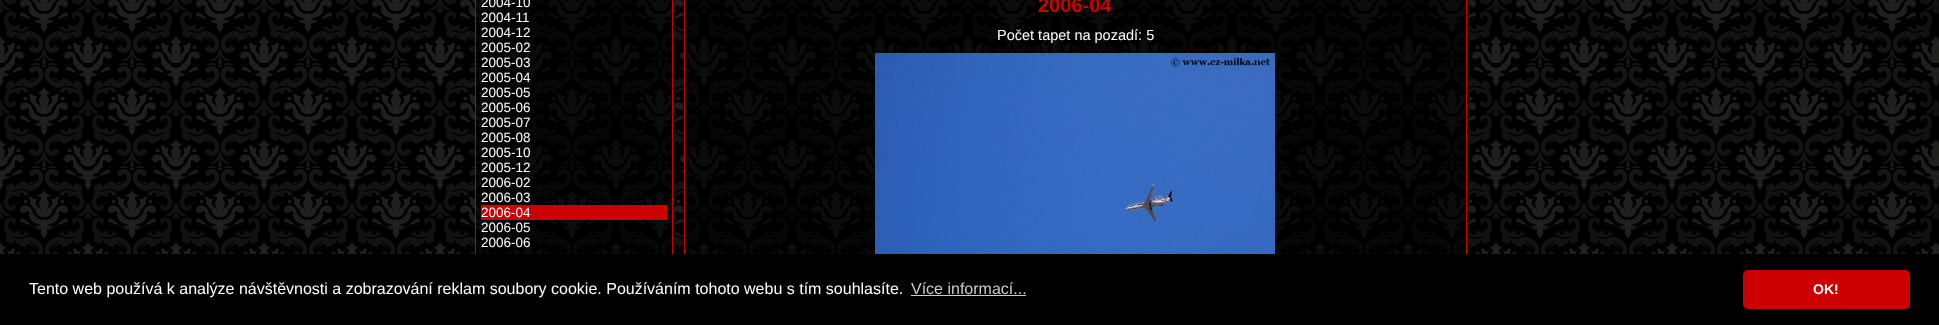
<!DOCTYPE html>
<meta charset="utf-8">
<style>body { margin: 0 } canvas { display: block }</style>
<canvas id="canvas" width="1939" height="325"></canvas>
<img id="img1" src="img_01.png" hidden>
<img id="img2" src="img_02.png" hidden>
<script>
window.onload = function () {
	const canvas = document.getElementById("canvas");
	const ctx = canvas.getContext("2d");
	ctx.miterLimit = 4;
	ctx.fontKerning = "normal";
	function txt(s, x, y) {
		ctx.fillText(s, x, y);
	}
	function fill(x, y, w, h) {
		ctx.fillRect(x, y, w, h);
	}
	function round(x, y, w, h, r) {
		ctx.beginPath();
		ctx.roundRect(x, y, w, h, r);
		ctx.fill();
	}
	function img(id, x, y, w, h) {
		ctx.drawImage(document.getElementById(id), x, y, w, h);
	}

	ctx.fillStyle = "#FFFFFF";
	fill(0, 0, 1939, 325);
	img("img1", 0, 0, 1939, 254);
	ctx.fillStyle = "rgba(0, 0, 0, 0.6)";
	fill(476, 0, 196, 254);
	ctx.strokeStyle = "#CC0000";
	ctx.strokeRect(475.5, -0.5, 197, 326);
	ctx.fillStyle = "#CC0000";
	fill(481, 205, 186, 15);
	ctx.fillStyle = "rgba(0, 0, 0, 0.6)";
	fill(685, 0, 781, 254);
	ctx.strokeRect(684.5, -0.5, 782, 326);
	img("img2", 875, 53, 400, 201);
	ctx.fillStyle = "#000000";
	fill(0, 254, 1939, 71);
	ctx.fillStyle = "#CCCCCC";
	fill(911, 295, 115, 1);
	ctx.fillStyle = "#CC0000";
	round(1743, 270, 167, 39, 5);
	ctx.font = "13.5px Liberation Sans";
	ctx.fillStyle = "#FFFFFF";
	txt("2004-10", 481, 7);
	txt("2004-11", 481, 22);
	txt("2004-12", 481, 37);
	txt("2005-02", 481, 52);
	txt("2005-03", 481, 67);
	txt("2005-04", 481, 82);
	txt("2005-05", 481, 97);
	txt("2005-06", 481, 112);
	txt("2005-07", 481, 127);
	txt("2005-08", 481, 142);
	txt("2005-10", 481, 157);
	txt("2005-12", 481, 172);
	txt("2006-02", 481, 187);
	txt("2006-03", 481, 202);
	txt("2006-04", 481, 217);
	txt("2006-05", 481, 232);
	txt("2006-06", 481, 247);
	ctx.font = "bold 20px Liberation Sans";
	ctx.fillStyle = "#CC0000";
	txt("2006-04", 1038, 12);
	ctx.font = "14.5px Liberation Sans";
	ctx.fillStyle = "#FFFFFF";
	txt("Počet tapet na pozadí: 5", 997, 40);
	ctx.font = "16px Liberation Sans";
	txt("Tento web používá k analýze návštěvnosti a zobrazování reklam soubory cookie. Používáním tohoto webu s tím souhlasíte.", 29, 294);
	ctx.fillStyle = "#CCCCCC";
	txt("Více informací...", 911, 294);
	ctx.font = "bold 14px Liberation Sans";
	ctx.fillStyle = "#FFFFFF";
	txt("OK!", 1813, 294);
};
</script>
